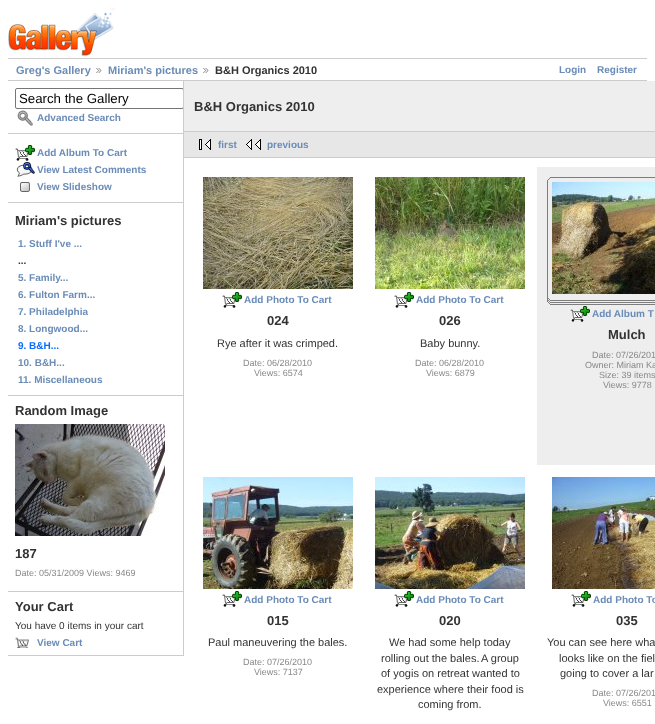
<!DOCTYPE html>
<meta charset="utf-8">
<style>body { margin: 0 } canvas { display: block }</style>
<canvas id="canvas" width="655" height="724"></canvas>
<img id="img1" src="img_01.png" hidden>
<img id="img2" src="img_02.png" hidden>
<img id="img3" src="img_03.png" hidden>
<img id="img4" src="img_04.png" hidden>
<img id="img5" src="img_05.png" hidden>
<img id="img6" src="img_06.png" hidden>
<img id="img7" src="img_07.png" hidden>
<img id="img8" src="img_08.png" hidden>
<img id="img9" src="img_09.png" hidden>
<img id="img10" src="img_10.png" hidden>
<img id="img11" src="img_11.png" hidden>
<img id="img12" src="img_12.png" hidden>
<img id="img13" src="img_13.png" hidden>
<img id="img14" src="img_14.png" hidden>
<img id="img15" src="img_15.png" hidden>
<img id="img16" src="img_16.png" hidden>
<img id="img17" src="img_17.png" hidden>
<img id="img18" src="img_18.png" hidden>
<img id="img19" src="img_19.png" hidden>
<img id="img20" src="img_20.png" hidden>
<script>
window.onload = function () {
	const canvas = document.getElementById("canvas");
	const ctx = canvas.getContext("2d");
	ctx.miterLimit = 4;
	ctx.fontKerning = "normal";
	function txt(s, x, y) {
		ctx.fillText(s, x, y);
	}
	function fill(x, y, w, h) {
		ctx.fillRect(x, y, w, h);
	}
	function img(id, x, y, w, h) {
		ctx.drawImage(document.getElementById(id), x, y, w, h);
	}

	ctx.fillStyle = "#FFFFFF";
	fill(0, 0, 655, 724);
	img("img1", 8, 8, 107, 48);
	ctx.fillStyle = "#CCCCCC";
	fill(8, 58, 639, 1);
	fill(8, 80, 639, 1);
	img("img2", 96, 68, 6, 5);
	img("img2", 203, 68, 6, 5);
	fill(183, 81, 1, 575);
	fill(8, 133, 175, 1);
	ctx.save();
	ctx.beginPath();
	ctx.rect(8, 81, 175, 575);
	ctx.clip();
	ctx.beginPath();
	ctx.roundRect(15.5, 88.5, 168, 20, 1.5);
	ctx.strokeStyle = "#767676";
	ctx.stroke();
	ctx.restore();
	img("img3", 17, 110, 16, 16);
	fill(8, 202, 175, 1);
	img("img4", 15, 145, 20, 16);
	img("img5", 16, 162, 19, 15);
	img("img6", 20, 182, 10, 10);
	fill(8, 395, 175, 1);
	fill(8, 591, 175, 1);
	img("img7", 15, 424, 150, 112);
	fill(8, 655, 175, 1);
	img("img8", 15, 637, 14, 11);
	ctx.fillStyle = "#EEEEEE";
	fill(184, 81, 471, 50);
	ctx.fillStyle = "#CCCCCC";
	fill(184, 131, 471, 1);
	ctx.fillStyle = "#E7E7E7";
	fill(184, 132, 471, 25);
	ctx.fillStyle = "#CCCCCC";
	fill(184, 157, 471, 1);
	img("img9", 199, 139, 12, 11);
	img("img10", 246, 139, 15, 11);
	img("img11", 203, 177, 150, 112);
	img("img4", 222, 292, 20, 16);
	img("img12", 375, 177, 150, 112);
	img("img4", 394, 292, 20, 16);
	ctx.fillStyle = "#EEEEEE";
	fill(537, 167, 118, 298);
	img("img13", 547, 177, 5, 5);
	ctx.fillStyle = "#7D7D7D";
	fill(552, 177, 103, 1);
	fill(547, 182, 1, 112);
	img("img14", 552, 182, 103, 112);
	img("img15", 547, 294, 5, 11);
	img("img16", 552, 300, 103, 5);
	img("img17", 570, 306, 20, 16);
	img("img18", 203, 477, 150, 112);
	img("img4", 222, 591, 20, 16);
	img("img19", 375, 477, 150, 112);
	img("img4", 394, 591, 20, 16);
	img("img20", 552, 477, 103, 112);
	img("img4", 571, 591, 20, 16);
	ctx.font = "bold 11px Liberation Sans";
	ctx.fillStyle = "#6B8CB7";
	txt("Greg's Gallery", 16, 74);
	txt("Miriam's pictures", 108, 74);
	ctx.fillStyle = "#333333";
	txt("B&H Organics 2010", 215, 74);
	ctx.font = "bold 10px Liberation Sans";
	ctx.fillStyle = "#6B8CB7";
	txt("Login", 559, 73);
	txt("Register", 597, 73);
	ctx.font = "13.25px Liberation Sans";
	ctx.fillStyle = "#000000";
	txt("Search the Gallery", 19, 103);
	ctx.font = "bold 10px Liberation Sans";
	ctx.fillStyle = "#6B8CB7";
	txt("Advanced Search", 37, 121);
	txt("Add Album To Cart", 37, 156);
	txt("View Latest Comments", 37, 173);
	txt("View Slideshow", 37, 190);
	ctx.font = "bold 13px Liberation Sans";
	ctx.fillStyle = "#333333";
	txt("Miriam's pictures", 15, 225);
	ctx.font = "bold 10px Liberation Sans";
	ctx.fillStyle = "#6B8CB7";
	txt("1. Stuff I've ...", 18, 247);
	ctx.fillStyle = "#333333";
	txt("...", 18, 264);
	ctx.fillStyle = "#6B8CB7";
	txt("5. Family...", 18, 281);
	txt("6. Fulton Farm...", 18, 298);
	txt("7. Philadelphia", 18, 315);
	txt("8. Longwood...", 18, 332);
	ctx.fillStyle = "#0B6CFF";
	txt("9. B&H...", 18, 349);
	ctx.fillStyle = "#6B8CB7";
	txt("10. B&H...", 18, 366);
	txt("11. Miscellaneous", 18, 383);
	ctx.font = "bold 13px Liberation Sans";
	ctx.fillStyle = "#333333";
	txt("Random Image", 15, 415);
	txt("187", 15, 558);
	ctx.font = "9px Liberation Sans";
	ctx.fillStyle = "#888888";
	txt("Date: 05/31/2009 Views: 9469", 15, 576);
	ctx.font = "bold 13px Liberation Sans";
	ctx.fillStyle = "#333333";
	txt("Your Cart", 15, 611);
	ctx.font = "10px Liberation Sans";
	txt("You have 0 items in your cart", 15, 629);
	ctx.font = "bold 10px Liberation Sans";
	ctx.fillStyle = "#6B8CB7";
	txt("View Cart", 37, 646);
	ctx.font = "bold 13px Liberation Sans";
	ctx.fillStyle = "#333333";
	txt("B&H Organics 2010", 194, 111);
	ctx.font = "bold 10px Liberation Sans";
	ctx.fillStyle = "#6B8CB7";
	txt("first", 218, 148);
	txt("previous", 267, 148);
	txt("Add Photo To Cart", 244, 303);
	ctx.font = "bold 13px Liberation Sans";
	ctx.fillStyle = "#333333";
	txt("024", 267, 325);
	ctx.font = "11px Liberation Sans";
	txt("Rye after it was crimped.", 217, 347);
	ctx.font = "9px Liberation Sans";
	ctx.fillStyle = "#888888";
	txt("Date: 06/28/2010", 243, 366);
	txt("Views: 6574", 254, 376);
	ctx.font = "bold 10px Liberation Sans";
	ctx.fillStyle = "#6B8CB7";
	txt("Add Photo To Cart", 416, 303);
	ctx.font = "bold 13px Liberation Sans";
	ctx.fillStyle = "#333333";
	txt("026", 439, 325);
	ctx.font = "11px Liberation Sans";
	txt("Baby bunny.", 420, 347);
	ctx.font = "9px Liberation Sans";
	ctx.fillStyle = "#888888";
	txt("Date: 06/28/2010", 415, 366);
	txt("Views: 6879", 426, 376);
	ctx.font = "bold 10px Liberation Sans";
	ctx.fillStyle = "#6B8CB7";
	txt("Add Album T", 592, 317);
	ctx.font = "bold 13px Liberation Sans";
	ctx.fillStyle = "#333333";
	txt("Mulch", 608, 339);
	ctx.font = "9px Liberation Sans";
	ctx.fillStyle = "#888888";
	txt("Date: 07/26/201", 592, 358);
	txt("Owner: Miriam Ka", 585, 368);
	txt("Size: 39 items", 599, 378);
	txt("Views: 9778", 603, 388);
	ctx.font = "bold 10px Liberation Sans";
	ctx.fillStyle = "#6B8CB7";
	txt("Add Photo To Cart", 244, 603);
	ctx.font = "bold 13px Liberation Sans";
	ctx.fillStyle = "#333333";
	txt("015", 267, 625);
	ctx.font = "11px Liberation Sans";
	txt("Paul maneuvering the bales.", 208, 646);
	ctx.font = "9px Liberation Sans";
	ctx.fillStyle = "#888888";
	txt("Date: 07/26/2010", 243, 665);
	txt("Views: 7137", 254, 675);
	ctx.font = "bold 10px Liberation Sans";
	ctx.fillStyle = "#6B8CB7";
	txt("Add Photo To Cart", 416, 603);
	ctx.font = "bold 13px Liberation Sans";
	ctx.fillStyle = "#333333";
	txt("020", 439, 625);
	ctx.font = "11px Liberation Sans";
	txt("We had some help today", 389, 646);
	txt("rolling out the bales.", 381, 662);
	txt("A group", 481, 662);
	txt("of yogis on retreat wanted to", 381, 677);
	txt("experience where their food is", 377, 693);
	txt("coming from.", 418, 708);
	ctx.font = "bold 10px Liberation Sans";
	ctx.fillStyle = "#6B8CB7";
	txt("Add Photo To", 593, 603);
	ctx.font = "bold 13px Liberation Sans";
	ctx.fillStyle = "#333333";
	txt("035", 616, 625);
	ctx.font = "11px Liberation Sans";
	txt("You can see here wha", 547, 646);
	txt("looks like on the fiel", 559, 662);
	txt("going to cover a lar", 560, 677);
	ctx.font = "9px Liberation Sans";
	ctx.fillStyle = "#888888";
	txt("Date: 07/26/201", 592, 696);
	txt("Views: 6551", 603, 706);
};
</script>
